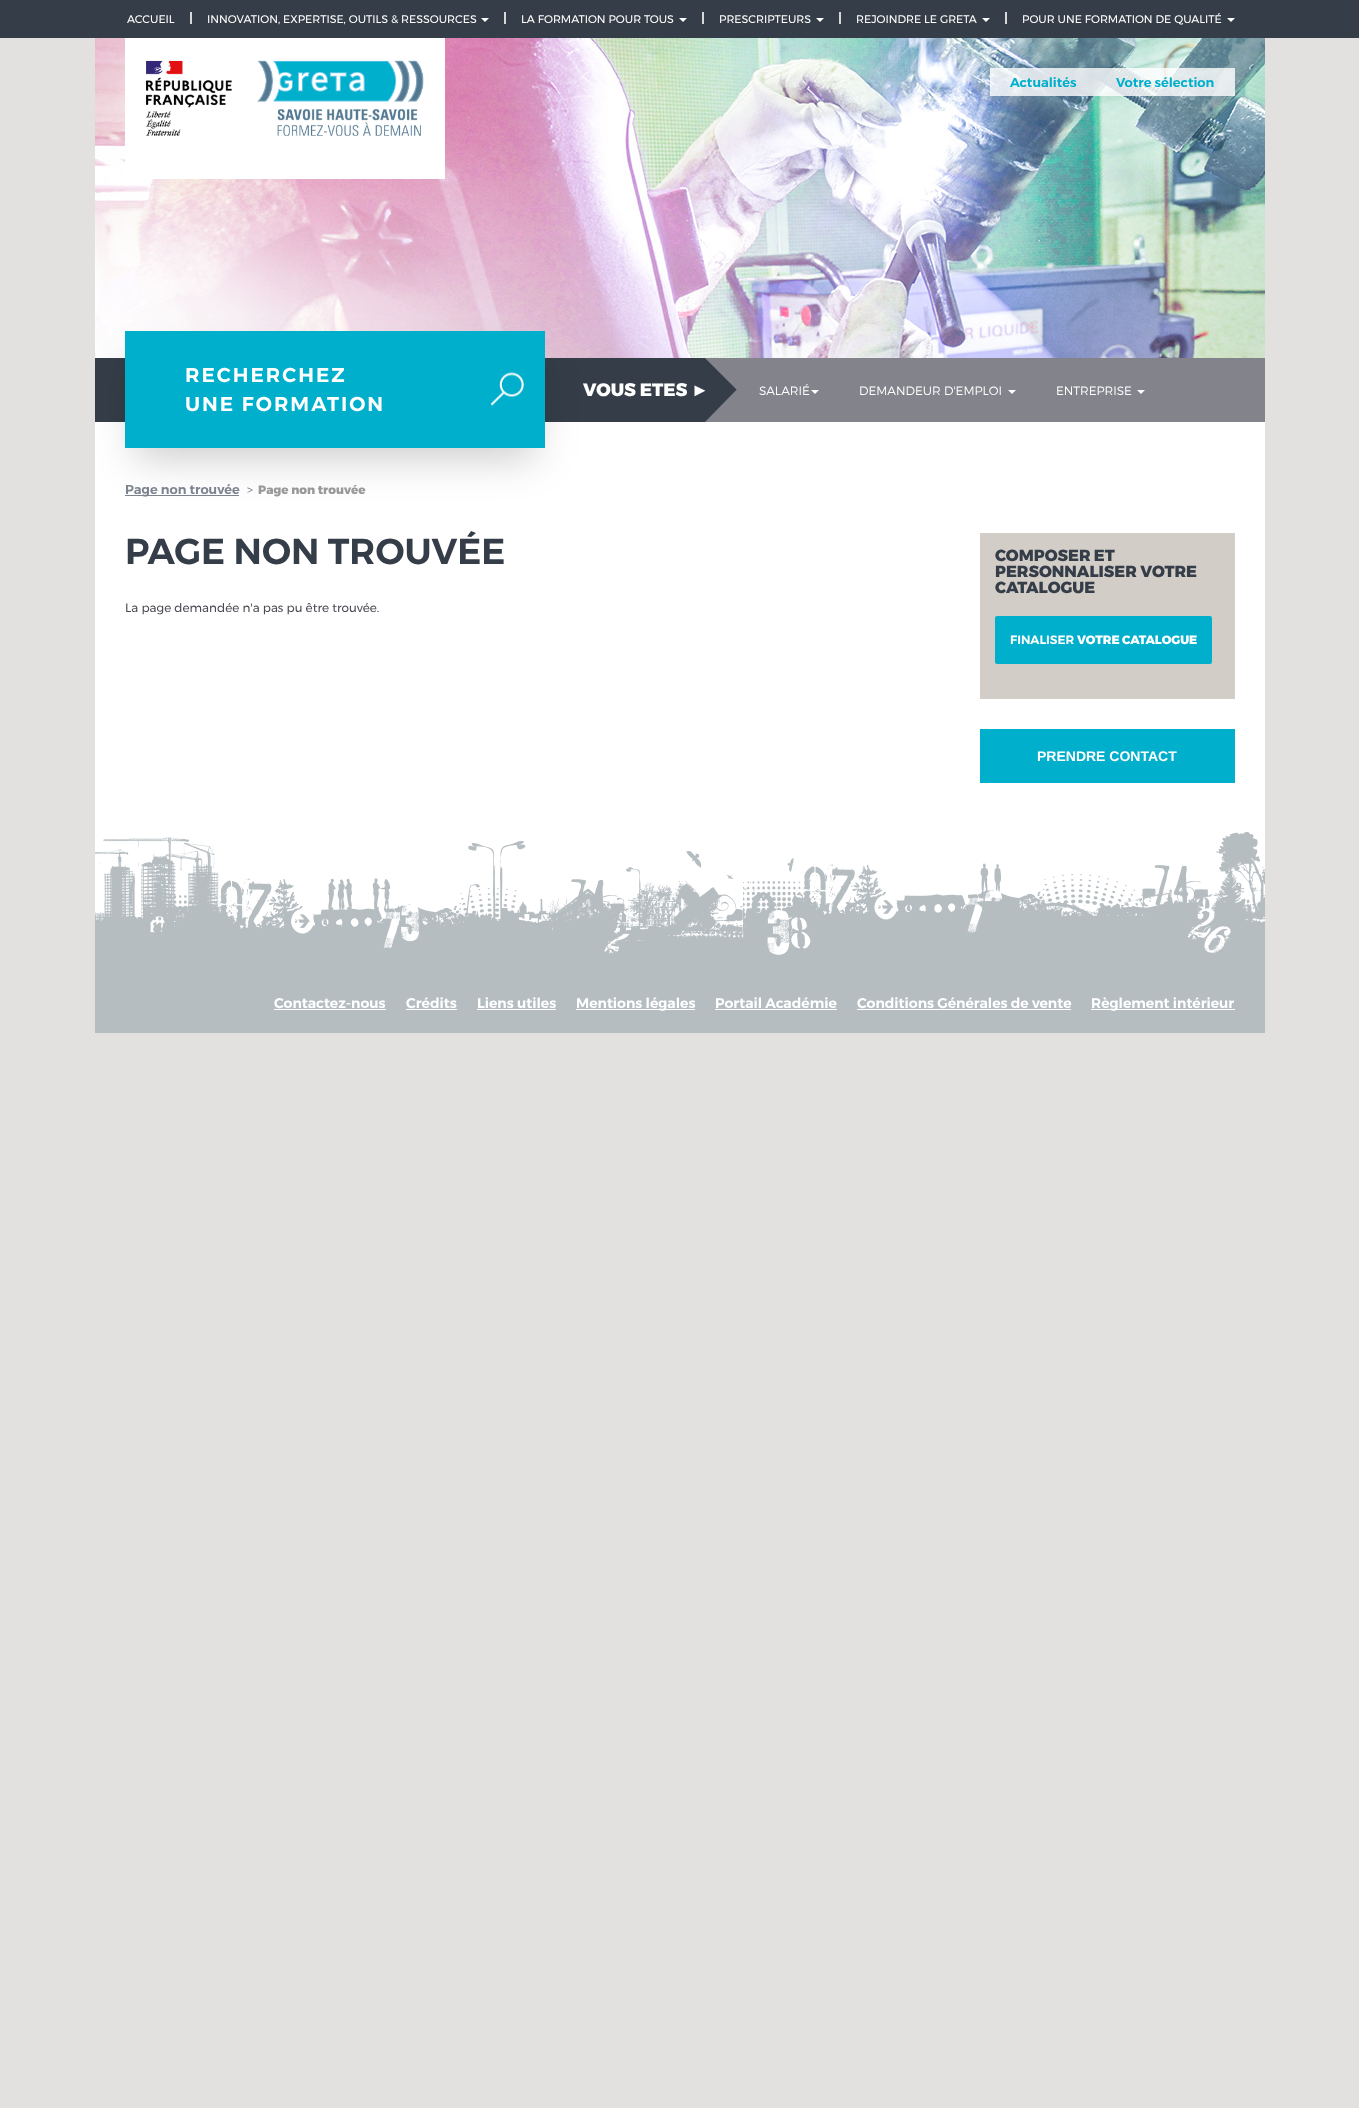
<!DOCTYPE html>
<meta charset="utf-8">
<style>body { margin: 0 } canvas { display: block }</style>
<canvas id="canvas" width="1359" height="2108"></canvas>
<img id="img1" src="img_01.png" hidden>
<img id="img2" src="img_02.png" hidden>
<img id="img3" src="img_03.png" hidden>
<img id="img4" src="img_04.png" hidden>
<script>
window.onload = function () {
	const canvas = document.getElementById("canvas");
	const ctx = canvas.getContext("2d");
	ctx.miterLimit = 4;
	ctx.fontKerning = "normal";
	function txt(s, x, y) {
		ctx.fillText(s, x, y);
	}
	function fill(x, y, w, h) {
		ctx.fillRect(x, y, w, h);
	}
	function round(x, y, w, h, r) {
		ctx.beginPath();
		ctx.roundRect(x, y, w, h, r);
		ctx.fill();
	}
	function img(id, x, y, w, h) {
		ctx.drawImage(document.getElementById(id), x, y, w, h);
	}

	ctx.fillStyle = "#E3E1E0";
	fill(0, 0, 1359, 2108);
	ctx.fillStyle = "#353E48";
	fill(0, 0, 1359, 38);
	ctx.fillStyle = "#D7D8DA";
	fill(190, 12, 2, 12);
	ctx.fillStyle = "#FFFFFF";
	ctx.beginPath();
	ctx.moveTo(481, 18);
	ctx.lineTo(489, 18);
	ctx.lineTo(485, 22);
	ctx.closePath();
	ctx.fill();
	ctx.fillStyle = "#D7D8DA";
	fill(504, 12, 2, 12);
	ctx.fillStyle = "#FFFFFF";
	ctx.beginPath();
	ctx.moveTo(679, 18);
	ctx.lineTo(687, 18);
	ctx.lineTo(683, 22);
	ctx.closePath();
	ctx.fill();
	ctx.fillStyle = "#D7D8DA";
	fill(702, 12, 2, 12);
	ctx.fillStyle = "#FFFFFF";
	ctx.beginPath();
	ctx.moveTo(816, 18);
	ctx.lineTo(824, 18);
	ctx.lineTo(820, 22);
	ctx.closePath();
	ctx.fill();
	ctx.fillStyle = "#D7D8DA";
	fill(839, 12, 2, 12);
	ctx.fillStyle = "#FFFFFF";
	ctx.beginPath();
	ctx.moveTo(982, 18);
	ctx.lineTo(990, 18);
	ctx.lineTo(986, 22);
	ctx.closePath();
	ctx.fill();
	ctx.fillStyle = "#D7D8DA";
	fill(1005, 12, 2, 12);
	ctx.fillStyle = "#FFFFFF";
	ctx.beginPath();
	ctx.moveTo(1227, 18);
	ctx.lineTo(1235, 18);
	ctx.lineTo(1231, 22);
	ctx.closePath();
	ctx.fill();
	img("img1", 95, 38, 1170, 320);
	fill(125, 38, 320, 141);
	img("img2", 146, 60, 278, 76);
	ctx.fillStyle = "rgba(255, 255, 255, 0.8)";
	fill(990, 68, 106, 28);
	fill(1096, 68, 139, 28);
	ctx.fillStyle = "#353E48";
	fill(95, 358, 642, 64);
	ctx.fillStyle = "#FFFFFF";
	fill(95, 422, 1170, 391);
	ctx.fillStyle = "#00AFCB";
	fill(125, 331, 420, 117);
	ctx.fillStyle = "#7E8390";
	fill(125, 495, 114, 1);
	ctx.save();
	ctx.beginPath();
	ctx.moveTo(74, 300);
	ctx.lineTo(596, 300);
	ctx.lineTo(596, 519);
	ctx.lineTo(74, 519);
	ctx.closePath();
	ctx.moveTo(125, 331);
	ctx.lineTo(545, 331);
	ctx.lineTo(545, 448);
	ctx.lineTo(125, 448);
	ctx.closePath();
	ctx.clip("evenodd");
	ctx.fillStyle = "rgba(0, 0, 0, 0.2)";
	ctx.filter = "blur(20px)";
	ctx.beginPath();
	ctx.rect(135, 361, 400, 97);
	ctx.fill();
	ctx.filter = "none";
	ctx.restore();
	img("img3", 491, 372, 33, 34);
	ctx.save();
	ctx.beginPath();
	ctx.rect(563, 358, 176, 64);
	ctx.clip();
	ctx.fillStyle = "#83838B";
	ctx.beginPath();
	ctx.moveTo(750, 312);
	ctx.lineTo(796, 358);
	ctx.lineTo(750, 403);
	ctx.lineTo(705, 358);
	ctx.closePath();
	ctx.fill();
	ctx.beginPath();
	ctx.moveTo(750, 376);
	ctx.lineTo(796, 422);
	ctx.lineTo(750, 467);
	ctx.lineTo(705, 422);
	ctx.closePath();
	ctx.fill();
	ctx.restore();
	ctx.fillStyle = "#83838B";
	fill(739, 358, 526, 64);
	ctx.fillStyle = "#FFFFFF";
	ctx.beginPath();
	ctx.moveTo(811, 390);
	ctx.lineTo(819, 390);
	ctx.lineTo(815, 394);
	ctx.closePath();
	ctx.fill();
	ctx.beginPath();
	ctx.moveTo(1008, 390);
	ctx.lineTo(1016, 390);
	ctx.lineTo(1012, 394);
	ctx.closePath();
	ctx.fill();
	ctx.beginPath();
	ctx.moveTo(1137, 390);
	ctx.lineTo(1145, 390);
	ctx.lineTo(1141, 394);
	ctx.closePath();
	ctx.fill();
	ctx.fillStyle = "#D3CDC7";
	fill(980, 533, 255, 166);
	ctx.fillStyle = "#00AFCB";
	round(995, 616, 217, 48, 2);
	fill(980, 729, 255, 54);
	img("img4", 95, 813, 1170, 220);
	ctx.fillStyle = "#FFFFFF";
	fill(274, 1009, 112, 1);
	fill(406, 1009, 51, 1);
	fill(477, 1009, 79, 1);
	fill(576, 1009, 119, 1);
	fill(715, 1009, 122, 1);
	fill(857, 1009, 214, 1);
	fill(1091, 1009, 144, 1);
	ctx.font = "11px Montserrat";
	txt("ACCUEIL", 127, 23);
	txt("INNOVATION, EXPERTISE, OUTILS & RESSOURCES", 207, 23);
	txt("LA FORMATION POUR TOUS", 521, 23);
	txt("PRESCRIPTEURS", 719, 23);
	txt("REJOINDRE LE GRETA", 856, 23);
	txt("POUR UNE FORMATION DE QUALITÉ", 1022, 23);
	ctx.font = "600 13px Montserrat";
	ctx.fillStyle = "#00AFCB";
	txt("Actualités", 1010, 87);
	txt("Votre sélection", 1116, 87);
	ctx.letterSpacing = "2px";
	ctx.font = "600 20px Montserrat";
	ctx.fillStyle = "#FFFFFF";
	txt("RECHERCHEZ", 185, 382);
	txt("UNE FORMATION", 185, 411);
	ctx.letterSpacing = "0px";
	ctx.font = "800 18px Montserrat";
	txt("VOUS ETES", 583, 396);
	ctx.font = "bold 18px Liberation Sans";
	txt("►", 691, 396);
	ctx.font = "300 12px Montserrat";
	txt("SALARIÉ", 759, 395);
	txt("DEMANDEUR D'EMPLOI", 859, 395);
	txt("ENTREPRISE", 1056, 395);
	ctx.font = "600 13px Montserrat";
	ctx.fillStyle = "#7E8390";
	txt("Page non trouvée", 125, 494);
	ctx.font = "12px Montserrat";
	txt(">", 247, 494);
	ctx.font = "800 12px Montserrat";
	ctx.fillStyle = "#999999";
	txt("Page non trouvée", 258, 494);
	ctx.font = "600 36px Montserrat";
	ctx.fillStyle = "#353E48";
	txt("PAGE NON TROUVÉE", 125, 564);
	ctx.font = "12px Montserrat";
	ctx.fillStyle = "#4C4B53";
	txt("La page demandée n'a pas pu être trouvée.", 125, 612);
	ctx.font = "800 16px Montserrat";
	ctx.fillStyle = "#353E48";
	txt("COMPOSER ET", 995, 561);
	txt("PERSONNALISER VOTRE", 995, 577);
	txt("CATALOGUE", 995, 593);
	ctx.font = "600 12px Montserrat";
	ctx.fillStyle = "#FFFFFF";
	txt("FINALISER", 1010, 644);
	ctx.font = "800 12px Montserrat";
	txt("VOTRE CATALOGUE", 1077, 644);
	ctx.font = "bold 14px Liberation Sans";
	txt("PRENDRE CONTACT", 1037, 761);
	ctx.font = "600 14px Montserrat";
	txt("Contactez-nous", 274, 1008);
	txt("Crédits", 406, 1008);
	txt("Liens utiles", 477, 1008);
	txt("Mentions légales", 576, 1008);
	txt("Portail Académie", 715, 1008);
	txt("Conditions Générales de vente", 857, 1008);
	txt("Règlement intérieur", 1091, 1008);
};
</script>
